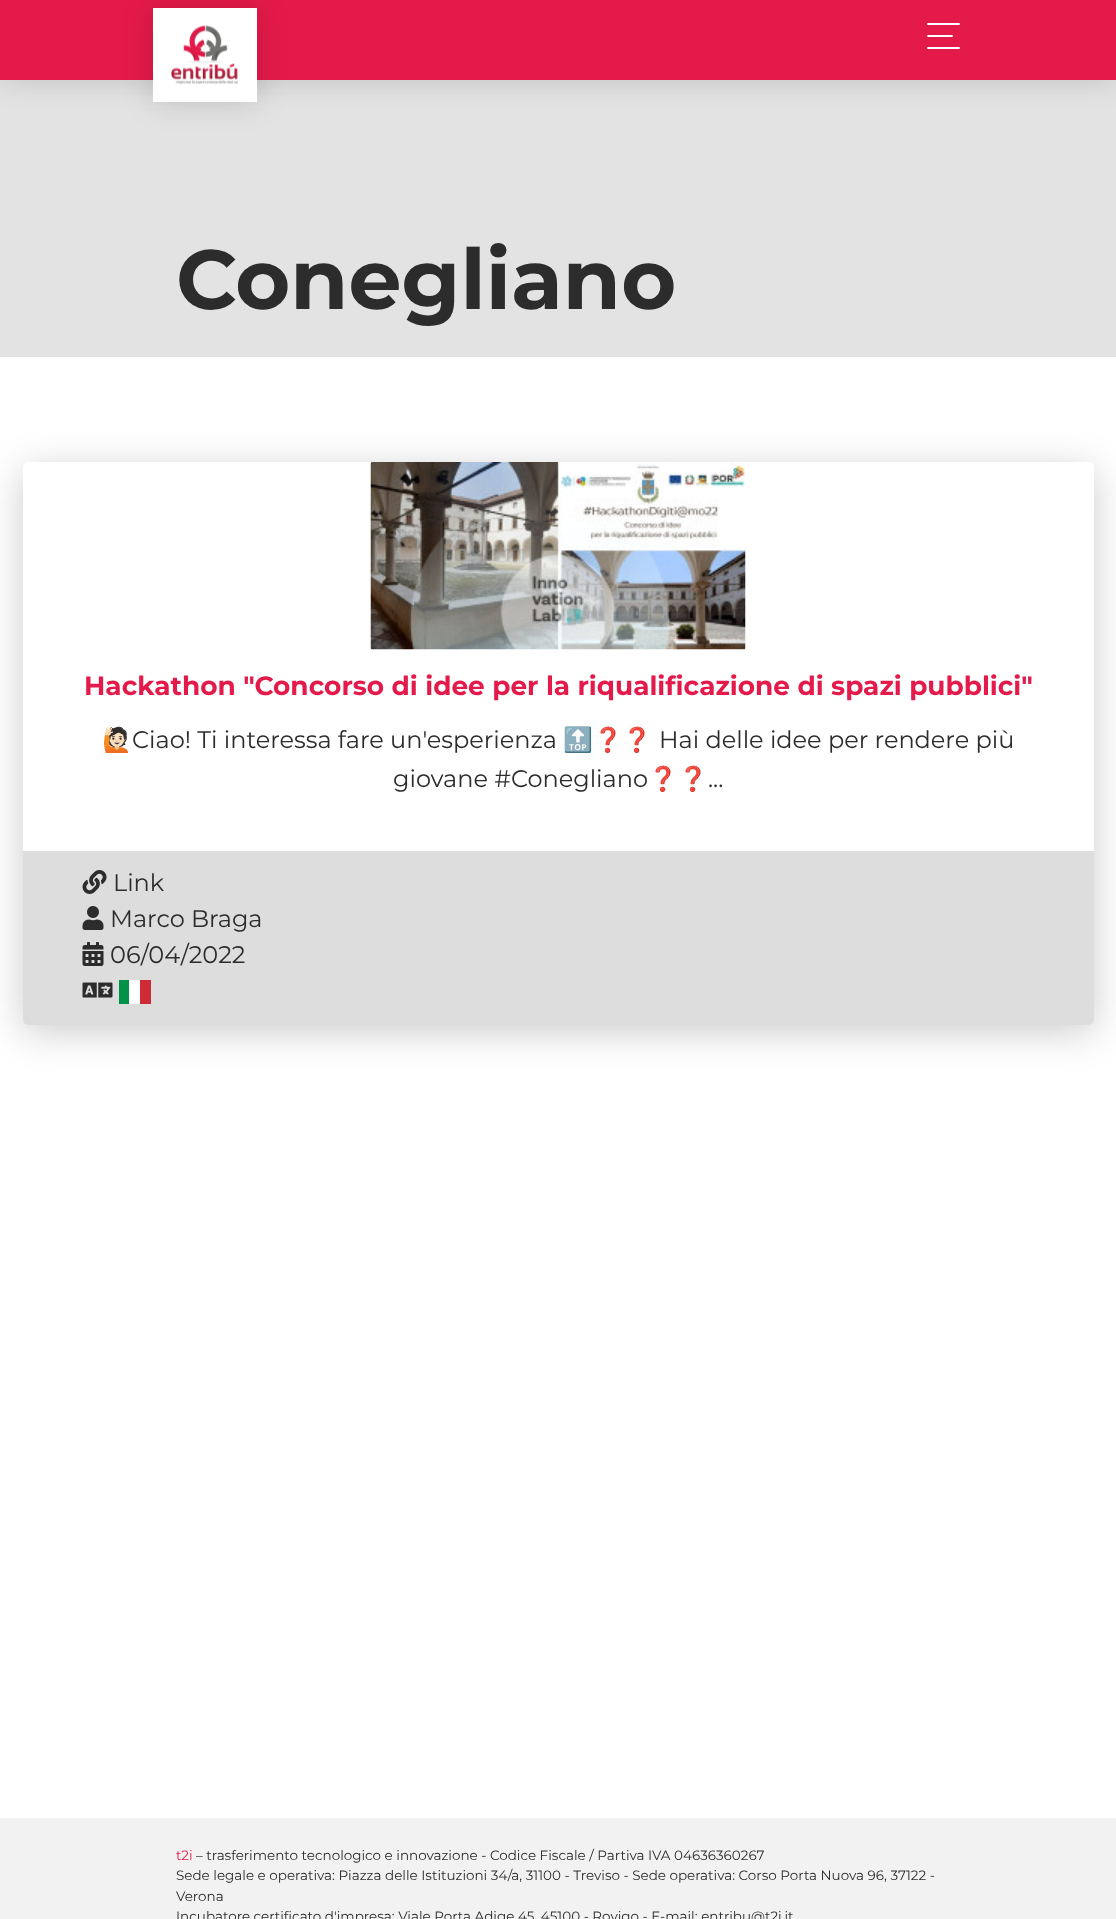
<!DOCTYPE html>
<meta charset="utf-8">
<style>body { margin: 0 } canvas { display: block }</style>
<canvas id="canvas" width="1116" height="1919"></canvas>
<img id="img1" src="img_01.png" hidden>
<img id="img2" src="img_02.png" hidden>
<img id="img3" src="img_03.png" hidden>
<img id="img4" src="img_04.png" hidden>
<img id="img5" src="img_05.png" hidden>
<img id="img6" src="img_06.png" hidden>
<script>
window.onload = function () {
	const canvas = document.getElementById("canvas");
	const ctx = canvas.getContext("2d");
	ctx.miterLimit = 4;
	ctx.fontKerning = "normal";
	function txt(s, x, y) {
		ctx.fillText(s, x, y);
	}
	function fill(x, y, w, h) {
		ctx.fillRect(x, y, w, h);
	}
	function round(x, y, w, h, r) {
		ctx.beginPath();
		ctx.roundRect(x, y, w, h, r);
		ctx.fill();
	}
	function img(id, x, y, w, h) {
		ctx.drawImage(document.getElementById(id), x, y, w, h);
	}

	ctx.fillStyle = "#FFFFFF";
	fill(0, 0, 1116, 1919);
	ctx.fillStyle = "#E3E3E3";
	fill(0, 80, 1116, 277);
	ctx.fillStyle = "rgba(0, 0, 0, 0.15)";
	ctx.filter = "blur(15px)";
	ctx.beginPath();
	ctx.rect(0, 0, 1116, 80);
	ctx.fill();
	ctx.filter = "none";
	ctx.fillStyle = "#E41A4A";
	fill(0, 0, 1116, 80);
	ctx.fillStyle = "rgba(0, 0, 0, 0.15)";
	ctx.filter = "blur(15px)";
	ctx.beginPath();
	ctx.rect(153, 8, 104, 94);
	ctx.fill();
	ctx.filter = "none";
	ctx.fillStyle = "#FFFFFF";
	fill(153, 8, 104, 94);
	img("img1", 171, 25, 68, 60);
	round(927, 23, 33, 2, 1);
	round(927, 35, 26, 2, 1);
	round(927, 47, 33, 2, 1);
	ctx.fillStyle = "rgba(0, 0, 0, 0.2)";
	ctx.filter = "blur(19px)";
	ctx.beginPath();
	ctx.roundRect(23, 470, 1071, 562, 5);
	ctx.fill();
	ctx.filter = "none";
	ctx.fillStyle = "#FFFFFF";
	round(23, 462, 1071, 563, 5);
	img("img2", 370, 462, 376, 188);
	ctx.fillStyle = "#DDDDDD";
	ctx.beginPath();
	ctx.roundRect(23, 851, 1071, 174, [0, 0, 5, 5]);
	ctx.fill();
	img("img3", 82, 870, 25, 24);
	img("img4", 82, 906, 22, 24);
	img("img5", 82, 942, 22, 24);
	img("img6", 82, 982, 31, 16);
	ctx.fillStyle = "#FFFFFF";
	fill(129, 980, 11, 24);
	ctx.fillStyle = "#009246";
	fill(119, 980, 10, 24);
	ctx.fillStyle = "#CE2B37";
	fill(140, 980, 11, 24);
	ctx.fillStyle = "#F2F2F2";
	fill(0, 1818, 1116, 101);
	ctx.font = "bold 84px Montserrat";
	ctx.fillStyle = "#2C2C2C";
	txt("Conegliano", 176, 309);
	ctx.font = "bold 26.4px Montserrat";
	ctx.fillStyle = "#E41A4A";
	txt("Hackathon \"Concorso di idee per la riqualificazione di spazi pubblici\"", 84, 695);
	ctx.font = "24px Noto Color Emoji";
	ctx.fillStyle = "#2C2C2C";
	txt("🙋🏻", 102, 748);
	ctx.font = "24px Montserrat";
	txt("Ciao! Ti interessa fare un'esperienza", 132, 748);
	ctx.font = "24px Noto Color Emoji";
	txt("🔝❓❓", 563, 748);
	ctx.font = "24px Montserrat";
	txt("Hai delle idee per rendere più", 659, 748);
	txt("giovane #Conegliano", 393, 787);
	ctx.font = "24px Noto Color Emoji";
	txt("❓❓", 648, 787);
	ctx.font = "24px Montserrat";
	txt("...", 708, 787);
	txt("Link", 113, 891);
	txt("Marco Braga", 110, 927);
	txt("06/04/2022", 110, 963);
	ctx.font = "13.5px Montserrat";
	ctx.fillStyle = "#E41A4A";
	txt("t2i", 176, 1860);
	ctx.fillStyle = "#2C2C2C";
	txt("– trasferimento tecnologico e innovazione - Codice Fiscale / Partiva IVA 04636360267", 196, 1860);
	txt("Sede legale e operativa: Piazza delle Istituzioni 34/a, 31100 - Treviso - Sede operativa: Corso Porta Nuova 96, 37122 -", 176, 1880);
	txt("Verona", 176, 1901);
	txt("Incubatore certificato d'impresa: Viale Porta Adige 45, 45100 - Rovigo - E-mail: entribu@t2i.it", 176, 1921);
};
</script>
